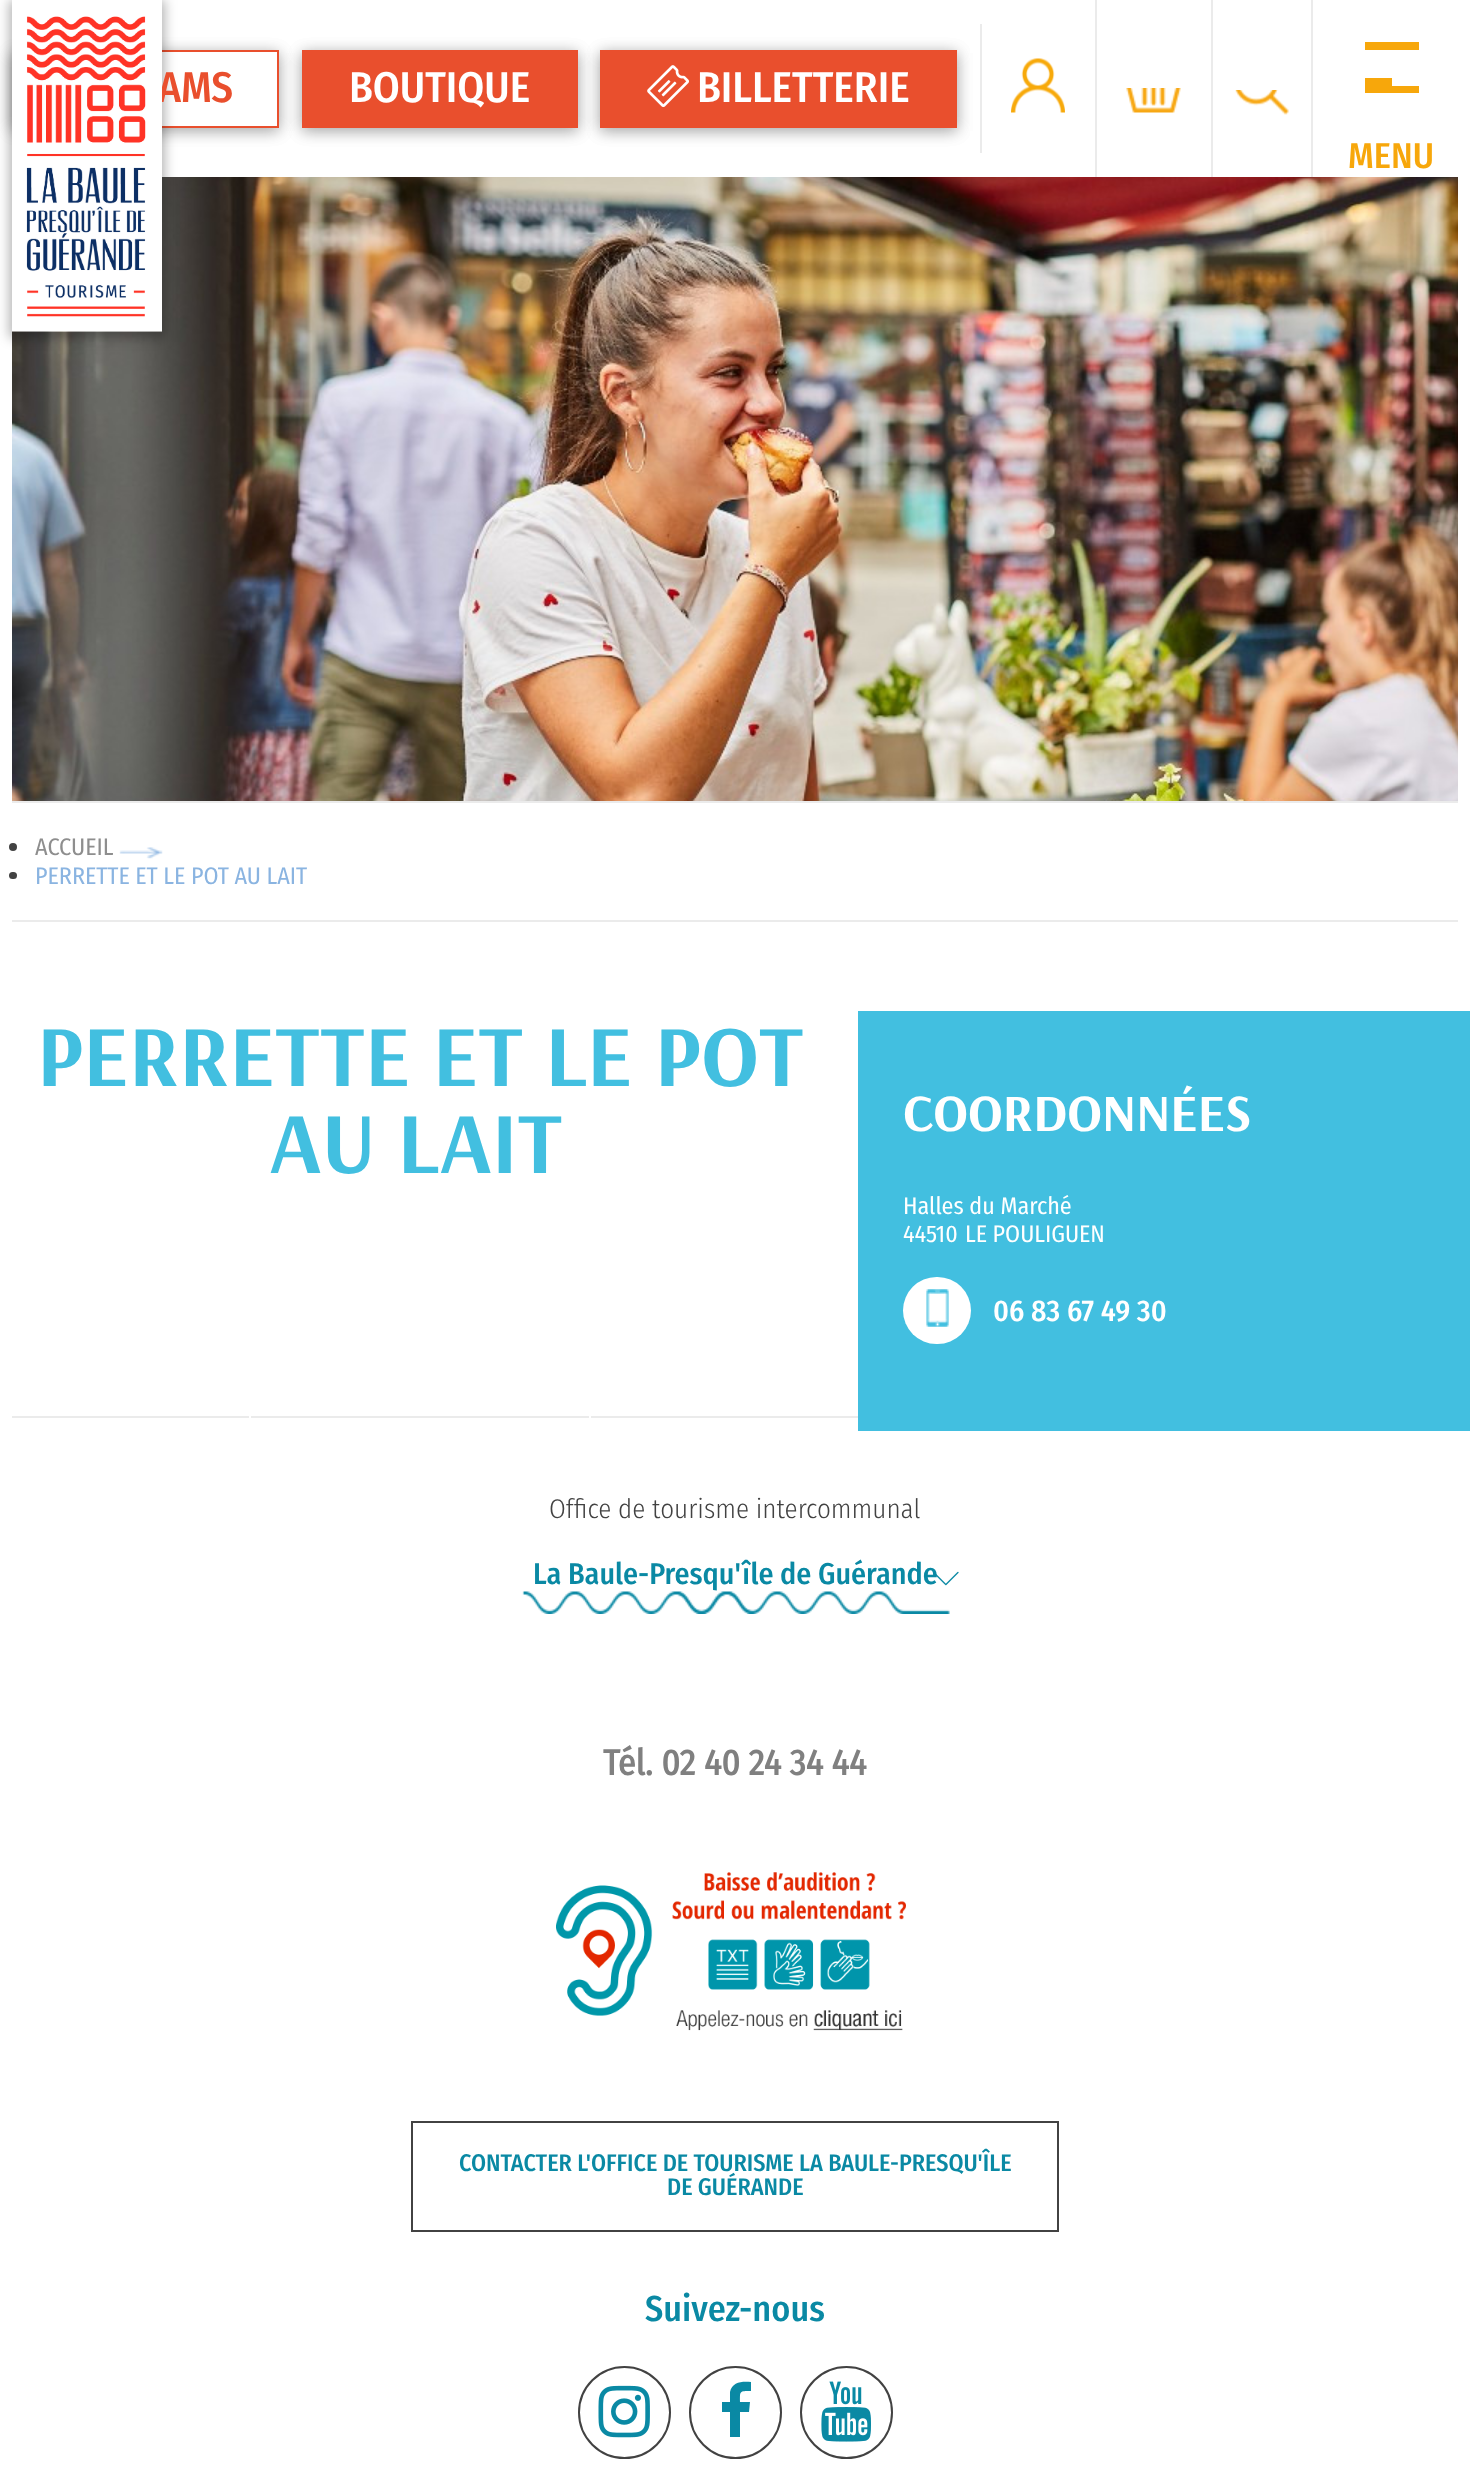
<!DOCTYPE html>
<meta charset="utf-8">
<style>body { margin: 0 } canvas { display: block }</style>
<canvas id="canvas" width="1470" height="2479"></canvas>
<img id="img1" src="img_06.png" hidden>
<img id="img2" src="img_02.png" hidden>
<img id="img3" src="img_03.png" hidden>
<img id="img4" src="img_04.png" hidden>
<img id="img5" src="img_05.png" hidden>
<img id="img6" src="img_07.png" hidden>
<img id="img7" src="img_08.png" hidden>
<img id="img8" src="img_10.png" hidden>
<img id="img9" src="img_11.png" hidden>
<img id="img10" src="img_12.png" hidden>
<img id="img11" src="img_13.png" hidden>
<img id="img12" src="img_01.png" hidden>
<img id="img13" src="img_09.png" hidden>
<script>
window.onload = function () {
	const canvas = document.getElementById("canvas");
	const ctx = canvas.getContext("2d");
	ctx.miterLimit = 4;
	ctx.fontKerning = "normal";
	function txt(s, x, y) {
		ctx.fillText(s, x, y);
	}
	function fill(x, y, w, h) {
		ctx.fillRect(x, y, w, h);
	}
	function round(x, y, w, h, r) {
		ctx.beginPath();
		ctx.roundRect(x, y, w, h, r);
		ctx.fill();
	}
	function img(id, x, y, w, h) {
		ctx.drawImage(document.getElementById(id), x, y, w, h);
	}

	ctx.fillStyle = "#FFFFFF";
	fill(0, 0, 1470, 2479);
	ctx.fillStyle = "rgba(0, 0, 0, 0.19)";
	ctx.filter = "blur(7.5px)";
	ctx.beginPath();
	ctx.rect(12, 53, 267, 78);
	ctx.fill();
	ctx.filter = "none";
	ctx.fillStyle = "rgba(0, 0, 0, 0.2)";
	ctx.filter = "blur(7.5px)";
	ctx.beginPath();
	ctx.rect(12, 53, 267, 78);
	ctx.fill();
	ctx.filter = "none";
	ctx.fillStyle = "#FFFFFF";
	fill(162, 52, 115, 74);
	ctx.strokeStyle = "#E94F2D";
	ctx.lineWidth = 2;
	ctx.strokeRect(13, 51, 265, 76);
	img("img1", 12, 177, 1446, 624);
	ctx.save();
	ctx.beginPath();
	ctx.moveTo(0, 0);
	ctx.lineTo(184, 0);
	ctx.lineTo(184, 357);
	ctx.lineTo(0, 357);
	ctx.closePath();
	ctx.moveTo(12, 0);
	ctx.lineTo(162, 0);
	ctx.lineTo(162, 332);
	ctx.lineTo(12, 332);
	ctx.closePath();
	ctx.clip("evenodd");
	ctx.fillStyle = "rgba(0, 0, 0, 0.29)";
	ctx.filter = "blur(6px)";
	ctx.beginPath();
	ctx.rect(9, 0, 156, 338);
	ctx.fill();
	ctx.filter = "none";
	ctx.restore();
	ctx.fillStyle = "rgba(0, 0, 0, 0.19)";
	ctx.filter = "blur(7.5px)";
	ctx.beginPath();
	ctx.rect(302, 53, 276, 78);
	ctx.fill();
	ctx.filter = "none";
	ctx.fillStyle = "rgba(0, 0, 0, 0.2)";
	ctx.filter = "blur(7.5px)";
	ctx.beginPath();
	ctx.rect(302, 53, 276, 78);
	ctx.fill();
	ctx.filter = "none";
	ctx.fillStyle = "#E94F2D";
	fill(302, 50, 276, 78);
	ctx.fillStyle = "#EBEBEB";
	fill(980, 24, 2, 129);
	ctx.fillStyle = "rgba(0, 0, 0, 0.19)";
	ctx.filter = "blur(7.5px)";
	ctx.beginPath();
	ctx.rect(600, 53, 357, 78);
	ctx.fill();
	ctx.filter = "none";
	ctx.fillStyle = "rgba(0, 0, 0, 0.2)";
	ctx.filter = "blur(7.5px)";
	ctx.beginPath();
	ctx.rect(600, 53, 357, 78);
	ctx.fill();
	ctx.filter = "none";
	ctx.fillStyle = "#E94F2D";
	fill(600, 50, 357, 78);
	img("img2", 647, 65, 42, 43);
	ctx.fillStyle = "#EBEBEB";
	fill(1095, 0, 2, 177);
	img("img3", 1011, 58, 54, 55);
	fill(1211, 0, 2, 177);
	img("img4", 1126, 88, 55, 25);
	fill(1311, 0, 2, 177);
	img("img5", 1235, 90, 54, 25);
	ctx.fillStyle = "#F7A70B";
	fill(1365, 86, 54, 7);
	fill(1365, 42, 54, 8);
	fill(1365, 78, 27, 8);
	ctx.fillStyle = "#EBEBEB";
	fill(12, 801, 1446, 2);
	fill(12, 920, 1446, 2);
	ctx.fillStyle = "#424242";
	ctx.beginPath();
	ctx.arc(13, 847, 4, 0, Math.PI * 2);
	ctx.fill();
	img("img6", 119, 847, 44, 12);
	round(9, 872, 8, 7, 3.5);
	ctx.fillStyle = "#42BFE0";
	fill(858, 1011, 612, 420);
	ctx.fillStyle = "#FFFFFF";
	round(903, 1277, 68, 67, 33.5);
	img("img7", 926, 1289, 23, 38);
	ctx.fillStyle = "#EBEBEB";
	fill(12, 1416, 846, 2);
	ctx.strokeStyle = "#FFFFFF";
	ctx.strokeRect(250, 1336, 340, 103);
	img("img8", 522, 1591, 428, 23);
	img("img9", 556, 1872, 350, 159);
	ctx.strokeStyle = "#424242";
	ctx.strokeRect(412, 2122, 646, 109);
	ctx.beginPath();
	ctx.arc(624.5, 2412.5, 45.5, 0, Math.PI * 2);
	ctx.stroke();
	img("img10", 598, 2385, 52, 53);
	ctx.beginPath();
	ctx.arc(735.5, 2412.5, 45.5, 0, Math.PI * 2);
	ctx.stroke();
	ctx.fillStyle = "#0A89A4";
	ctx.beginPath();
	ctx.moveTo(751, 2382);
	ctx.bezierCurveTo(742, 2381, 732, 2382, 730, 2392);
	ctx.lineTo(730, 2402);
	ctx.lineTo(722, 2402);
	ctx.lineTo(722, 2412);
	ctx.lineTo(730, 2412);
	ctx.lineTo(730, 2437);
	ctx.lineTo(740, 2437);
	ctx.lineTo(740, 2412);
	ctx.lineTo(749, 2412);
	ctx.lineTo(750, 2402);
	ctx.lineTo(740, 2402);
	ctx.bezierCurveTo(740, 2391, 739, 2391, 751, 2391);
	ctx.closePath();
	ctx.fill();
	ctx.beginPath();
	ctx.arc(846.5, 2412.5, 45.5, 0, Math.PI * 2);
	ctx.stroke();
	img("img11", 821, 2381, 50, 61);
	ctx.font = "500 43px Fira Sans Condensed";
	ctx.fillStyle = "#E94F2D";
	txt("AMS", 158, 102);
	img("img12", 12, 16, 150, 316);
	ctx.fillStyle = "#FFFFFF";
	txt("BOUTIQUE", 349, 102);
	txt("BILLETTERIE", 697, 102);
	ctx.font = "500 36px Fira Sans Condensed";
	ctx.fillStyle = "#F7A70B";
	txt("MENU", 1348, 168);
	ctx.font = "24px Fira Sans Condensed";
	ctx.fillStyle = "#8E8E8E";
	txt("ACCUEIL", 35, 855);
	ctx.fillStyle = "#8AB4E1";
	txt("PERRETTE ET LE POT AU LAIT", 35, 884);
	ctx.font = "bold 87px Arsenal";
	ctx.fillStyle = "#42BFE0";
	txt("PERRETTE ET LE POT", 37, 1086);
	txt("AU LAIT", 269, 1173);
	ctx.font = "bold 52.5px Arsenal";
	ctx.fillStyle = "#FFFFFF";
	txt("COORDONNÉES", 903, 1131);
	ctx.font = "24px Fira Sans Condensed";
	txt("Halles du Marché", 903, 1214);
	txt("44510", 903, 1242);
	txt("LE POULIGUEN", 965, 1242);
	ctx.font = "500 30px Fira Sans Condensed";
	txt("06 83 67 49 30", 993, 1321);
	ctx.font = "300 27px Fira Sans Condensed";
	ctx.fillStyle = "#424242";
	txt("Office de tourisme intercommunal", 549, 1518);
	ctx.font = "500 30px Fira Sans Condensed";
	ctx.fillStyle = "#0A89A4";
	txt("La Baule-Presqu'île de Guérande", 533, 1584);
	img("img13", 936, 1571, 23, 15);
	ctx.font = "bold 36px Fira Sans Condensed";
	ctx.fillStyle = "#808080";
	txt("Tél. 02 40 24 34 44", 603, 1775);
	ctx.font = "500 24px Fira Sans Condensed";
	ctx.fillStyle = "#0A89A4";
	txt("CONTACTER L'OFFICE DE TOURISME LA BAULE-PRESQU'ÎLE", 459, 2171);
	txt("DE GUÉRANDE", 667, 2195);
	ctx.font = "500 36px Fira Sans Condensed";
	txt("Suivez-nous", 645, 2321);
};
</script>
